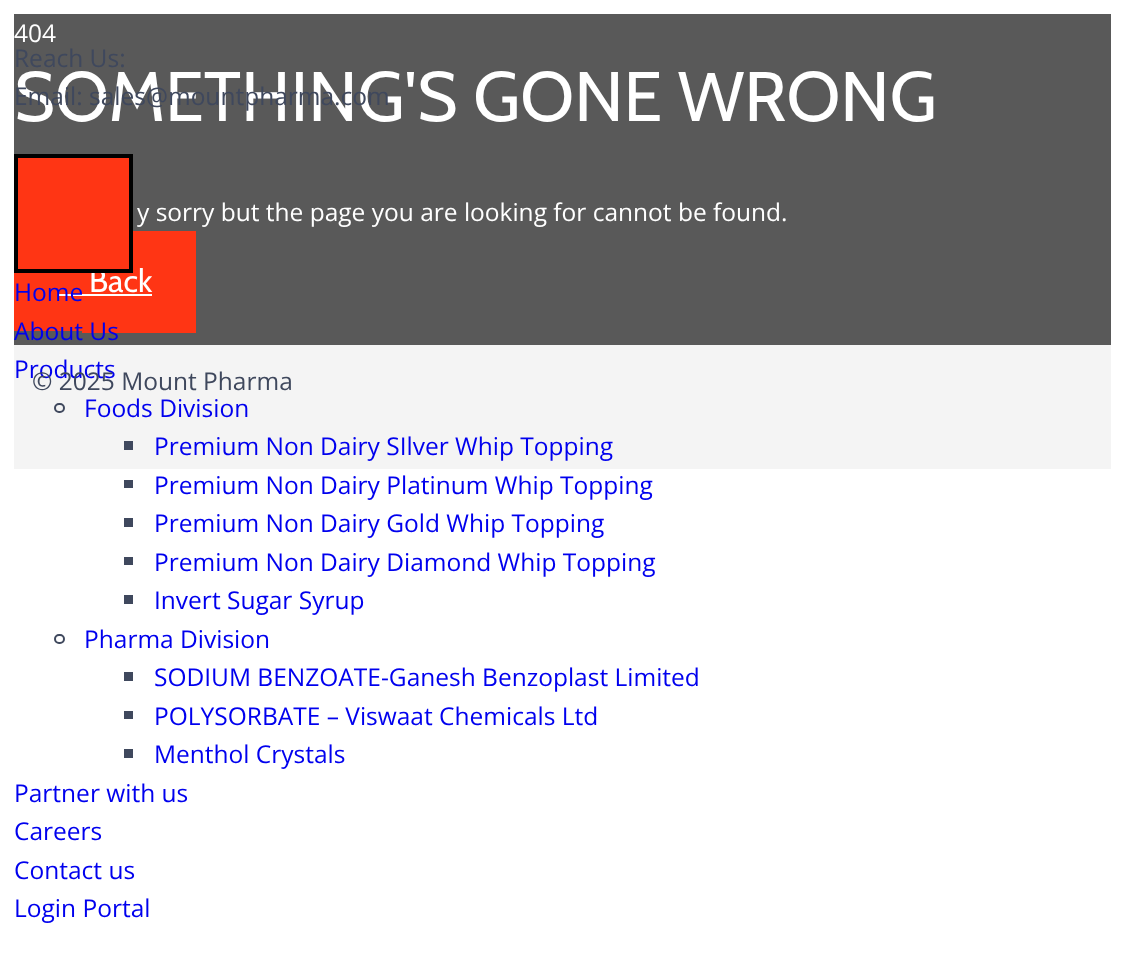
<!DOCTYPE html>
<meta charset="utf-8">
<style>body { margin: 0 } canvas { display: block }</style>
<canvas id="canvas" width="1125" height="967"></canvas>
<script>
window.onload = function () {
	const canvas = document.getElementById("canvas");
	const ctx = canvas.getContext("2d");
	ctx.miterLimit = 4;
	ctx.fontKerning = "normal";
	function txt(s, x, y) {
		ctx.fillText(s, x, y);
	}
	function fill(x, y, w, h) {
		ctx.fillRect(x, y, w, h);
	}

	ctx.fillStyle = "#FFFFFF";
	fill(0, 0, 1125, 967);
	ctx.fillStyle = "#F4F4F4";
	fill(14, 345, 1097, 124);
	ctx.fillStyle = "#595959";
	fill(14, 14, 1097, 331);
	ctx.fillStyle = "#FF3514";
	fill(14, 273, 68, 58);
	fill(82, 231, 114, 102);
	ctx.fillStyle = "#FFFFFF";
	fill(58, 294, 94, 2);
	ctx.beginPath();
	ctx.roundRect(55, 404, 9, 8, 4);
	ctx.strokeStyle = "#3F485D";
	ctx.lineWidth = 2;
	ctx.stroke();
	ctx.fillStyle = "#3F485D";
	fill(124, 441, 9, 9);
	fill(124, 480, 9, 8);
	fill(124, 518, 9, 9);
	fill(124, 557, 9, 8);
	fill(124, 595, 9, 9);
	ctx.beginPath();
	ctx.roundRect(55, 635, 9, 8, 4);
	ctx.stroke();
	fill(124, 672, 9, 9);
	fill(124, 711, 9, 8);
	fill(124, 749, 9, 9);
	ctx.font = "24.5px Open Sans";
	ctx.fillStyle = "#FFFFFF";
	txt("404", 14, 42);
	ctx.font = "70px Cabin";
	txt("SOMETHING'S GONE WRONG", 14, 121);
	ctx.font = "24.5px Open Sans";
	txt("y sorry but the page you are looking for cannot be found.", 137, 221);
	ctx.font = "32px Cabin";
	txt("Back", 89, 292);
	ctx.font = "24.5px Open Sans";
	ctx.fillStyle = "#3F485D";
	txt("Reach Us:", 14, 67);
	txt("Email: sales@mountpharma.com", 14, 105);
	ctx.fillStyle = "#FF3514";
	ctx.beginPath();
	ctx.rect(16, 156, 115, 115);
	ctx.fill();
	ctx.strokeStyle = "#000000";
	ctx.lineWidth = 4;
	ctx.stroke();
	ctx.fillStyle = "#0000EE";
	txt("Home", 14, 301);
	txt("About Us", 14, 340);
	txt("Products", 14, 378);
	txt("Foods Division", 84, 417);
	txt("Premium Non Dairy SIlver Whip Topping", 154, 455);
	txt("Premium Non Dairy Platinum Whip Topping", 154, 494);
	txt("Premium Non Dairy Gold Whip Topping", 154, 532);
	txt("Premium Non Dairy Diamond Whip Topping", 154, 571);
	txt("Invert Sugar Syrup", 154, 609);
	txt("Pharma Division", 84, 648);
	txt("SODIUM BENZOATE-Ganesh Benzoplast Limited", 154, 686);
	txt("POLYSORBATE – Viswaat Chemicals Ltd", 154, 725);
	txt("Menthol Crystals", 154, 763);
	txt("Partner with us", 14, 802);
	txt("Careers", 14, 840);
	txt("Contact us", 14, 879);
	txt("Login Portal", 14, 917);
	ctx.fillStyle = "#3F485D";
	txt("© 2025 Mount Pharma", 32, 390);
};
</script>
